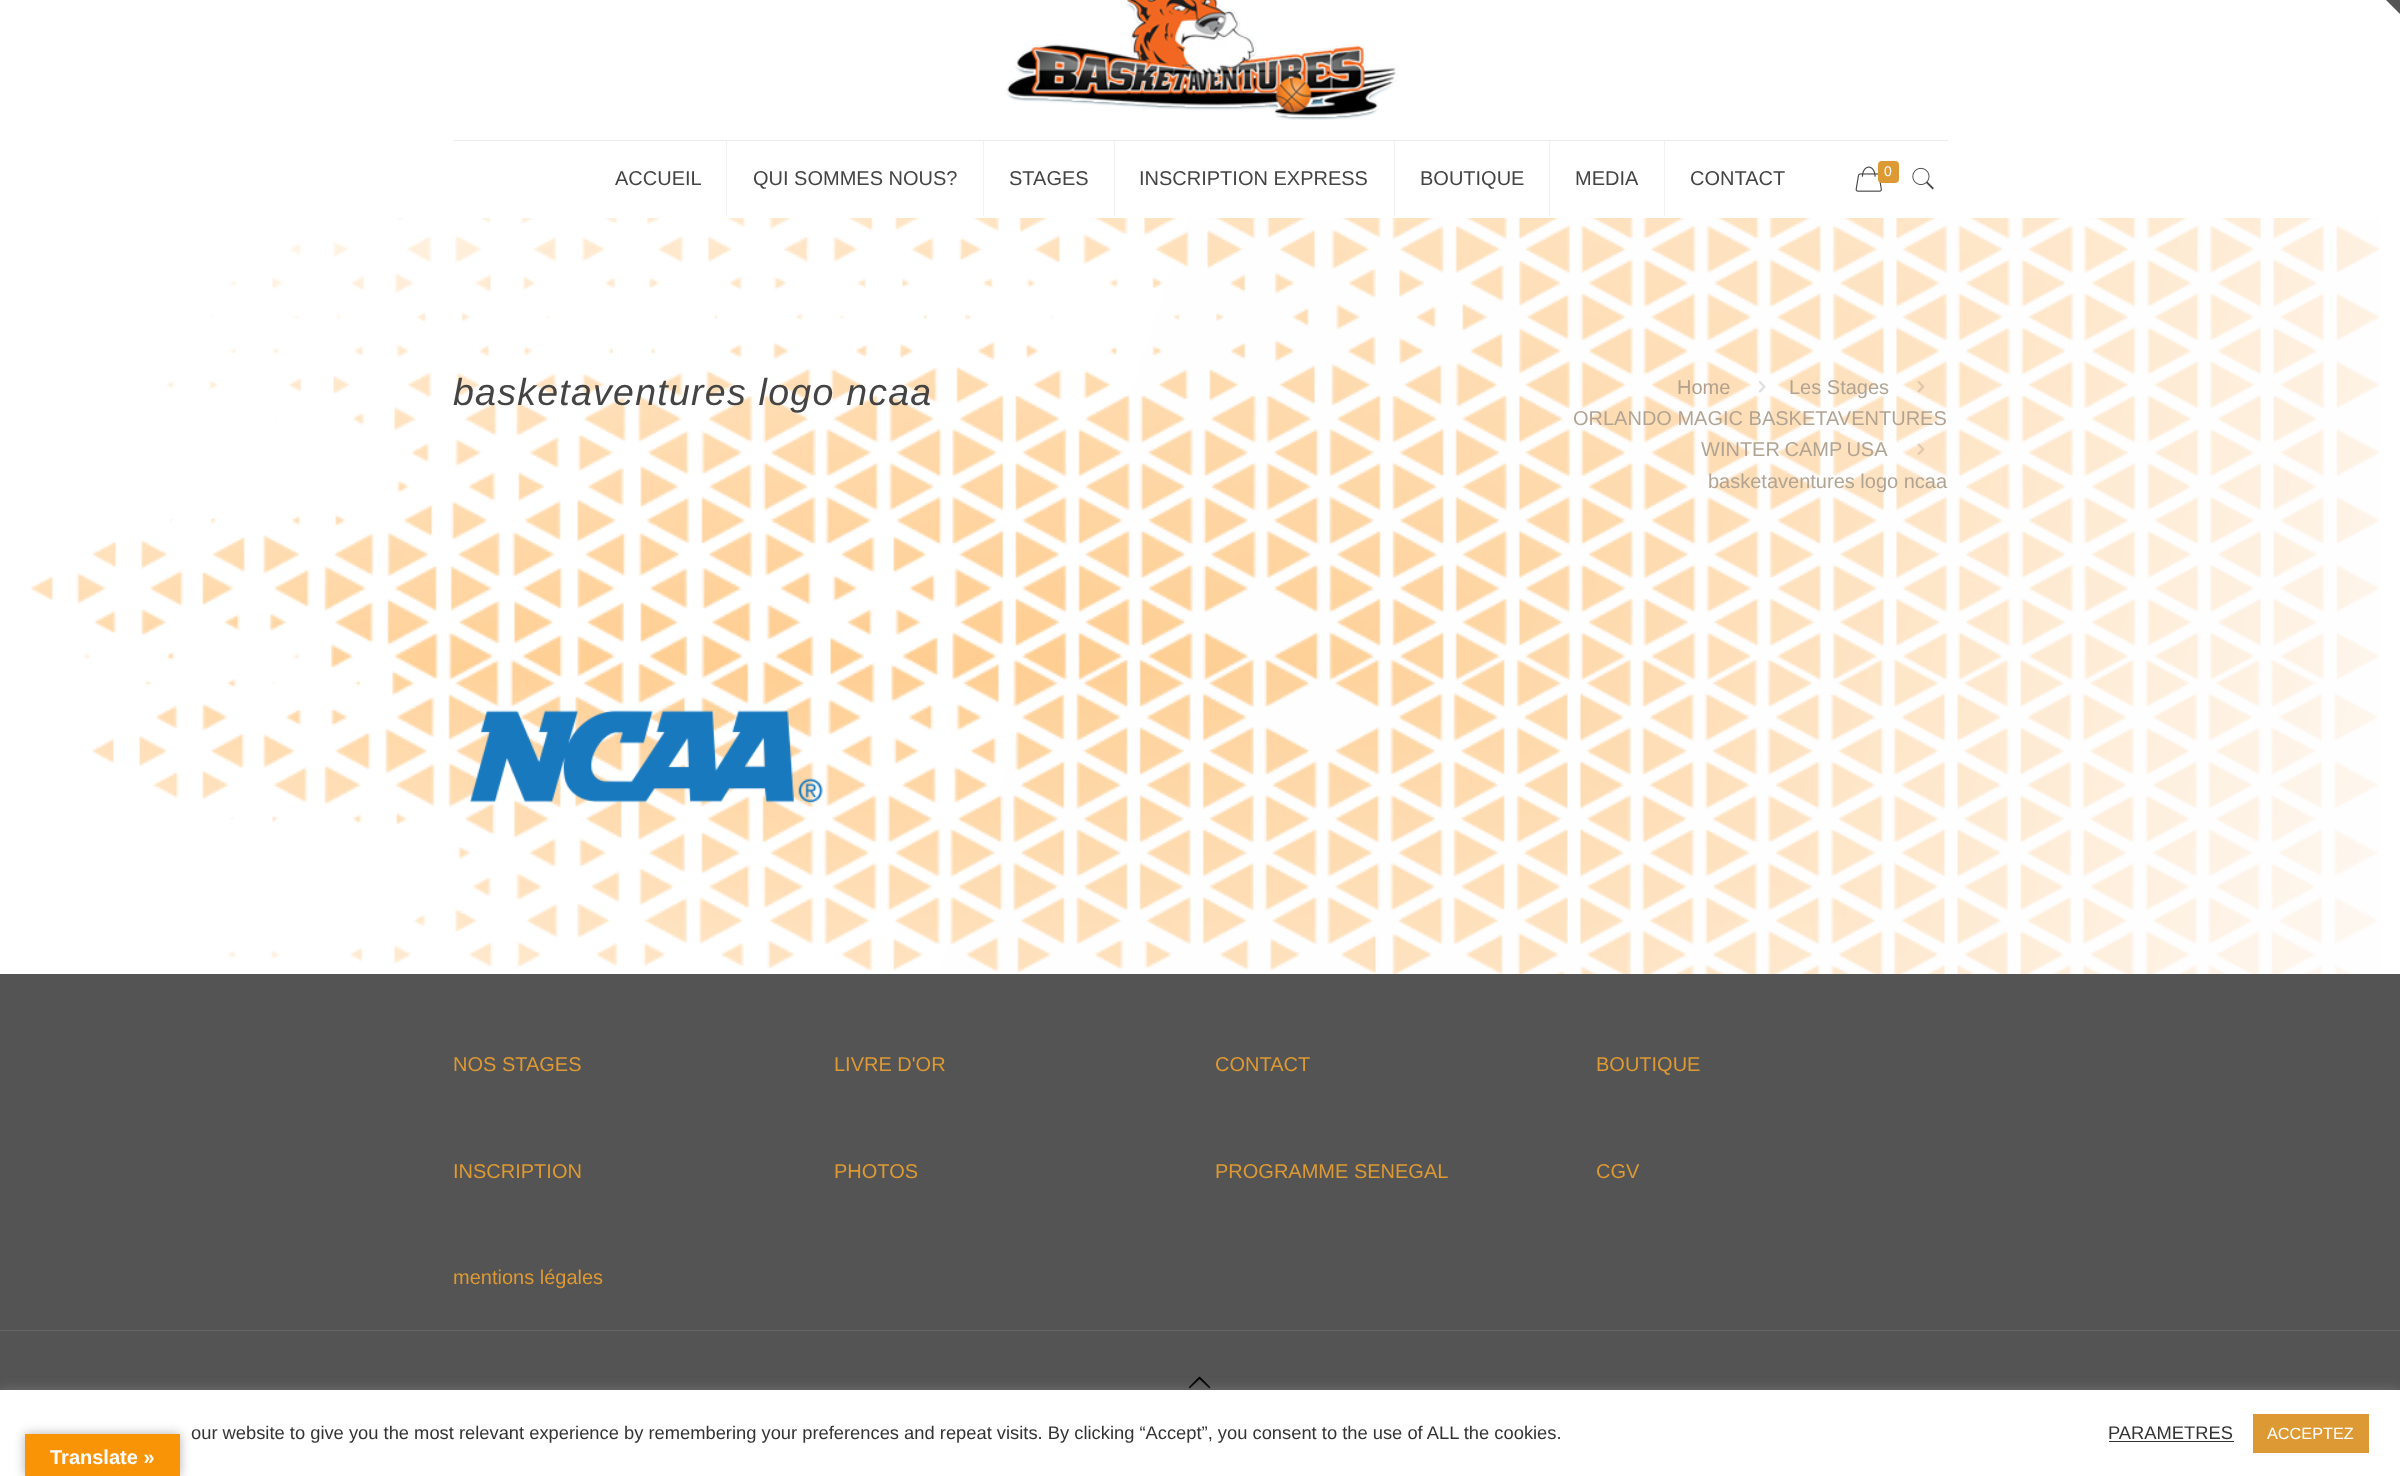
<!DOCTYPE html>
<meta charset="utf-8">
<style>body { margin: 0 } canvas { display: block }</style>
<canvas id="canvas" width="2400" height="1476"></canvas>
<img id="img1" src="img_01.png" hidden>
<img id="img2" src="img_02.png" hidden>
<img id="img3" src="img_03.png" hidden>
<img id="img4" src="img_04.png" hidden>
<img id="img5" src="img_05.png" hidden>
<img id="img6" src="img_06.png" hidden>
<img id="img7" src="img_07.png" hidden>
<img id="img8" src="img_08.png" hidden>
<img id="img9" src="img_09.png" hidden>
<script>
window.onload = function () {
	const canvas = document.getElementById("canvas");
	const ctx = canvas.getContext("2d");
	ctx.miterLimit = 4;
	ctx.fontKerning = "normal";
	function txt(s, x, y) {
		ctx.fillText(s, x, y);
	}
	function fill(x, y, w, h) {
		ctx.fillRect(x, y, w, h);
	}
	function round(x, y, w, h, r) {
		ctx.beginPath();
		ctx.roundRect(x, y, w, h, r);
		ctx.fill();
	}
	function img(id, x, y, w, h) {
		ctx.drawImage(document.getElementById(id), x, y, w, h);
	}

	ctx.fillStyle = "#FFFFFF";
	fill(0, 0, 2400, 1476);
	img("img1", 30, 218, 2350, 756);
	ctx.fillStyle = "#545454";
	ctx.beginPath();
	ctx.moveTo(2400, -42);
	ctx.lineTo(2400, 14);
	ctx.lineTo(2344, -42);
	ctx.closePath();
	ctx.fill();
	ctx.fillStyle = "#EBEBEB";
	fill(453, 140, 1495, 1);
	img("img2", 1005, 0, 394, 120);
	ctx.fillStyle = "#F2F2F2";
	fill(726, 141, 1, 75);
	fill(983, 141, 1, 75);
	fill(1114, 141, 1, 75);
	fill(1394, 141, 1, 75);
	fill(1549, 141, 1, 75);
	fill(1664, 141, 1, 75);
	img("img3", 1855, 166, 27, 26);
	ctx.fillStyle = "#DD9933";
	round(1878, 161, 21, 22, 4);
	img("img4", 1912, 167, 22, 23);
	img("img5", 1758, 381, 8, 12);
	img("img6", 1917, 381, 8, 12);
	img("img7", 1917, 443, 8, 12);
	img("img8", 470, 710, 353, 93);
	ctx.fillStyle = "#545454";
	fill(0, 974, 2400, 416);
	ctx.fillStyle = "#656565";
	fill(0, 1330, 2400, 1);
	img("img9", 1188, 1376, 23, 13);
	ctx.fillStyle = "rgba(172, 171, 171, 0.3)";
	ctx.filter = "blur(6px)";
	ctx.beginPath();
	ctx.rect(0, 1389, 2400, 86);
	ctx.fill();
	ctx.filter = "none";
	ctx.fillStyle = "#FFFFFF";
	fill(0, 1390, 2400, 86);
	ctx.fillStyle = "#333333";
	fill(2109, 1441, 125, 1);
	ctx.fillStyle = "#DD9933";
	fill(2253, 1414, 116, 39);
	ctx.fillStyle = "rgba(0, 0, 0, 0.3)";
	ctx.filter = "blur(5.5px)";
	ctx.beginPath();
	ctx.rect(25, 1434, 155, 42);
	ctx.fill();
	ctx.filter = "none";
	ctx.fillStyle = "#F89406";
	fill(25, 1434, 155, 42);
	ctx.font = "20px Liberation Sans";
	ctx.fillStyle = "#444444";
	txt("ACCUEIL", 615, 185);
	txt("QUI SOMMES NOUS?", 753, 185);
	txt("STAGES", 1009, 185);
	txt("INSCRIPTION EXPRESS", 1139, 185);
	txt("BOUTIQUE", 1420, 185);
	txt("MEDIA", 1575, 185);
	txt("CONTACT", 1690, 185);
	ctx.font = "14px Liberation Sans";
	ctx.fillStyle = "#FFFFFF";
	txt("0", 1884, 176);
	ctx.letterSpacing = "1.25px";
	ctx.font = "italic 37.5px Liberation Sans";
	ctx.fillStyle = "#444444";
	txt("basketaventures logo ncaa", 453, 405);
	ctx.letterSpacing = "0px";
	ctx.font = "20px Liberation Sans";
	ctx.fillStyle = "#B2A18D";
	txt("Home", 1677, 394);
	ctx.fillStyle = "#B2A493";
	txt("Les Stages", 1789, 394);
	txt("ORLANDO MAGIC BASKETAVENTURES", 1573, 425);
	ctx.wordSpacing = "-1px";
	txt("WINTER CAMP USA", 1701, 456);
	ctx.wordSpacing = "0px";
	txt("basketaventures logo ncaa", 1708, 488);
	ctx.fillStyle = "#DD9933";
	txt("NOS STAGES", 453, 1071);
	txt("INSCRIPTION", 453, 1178);
	txt("mentions légales", 453, 1284);
	txt("LIVRE D'OR", 834, 1071);
	txt("PHOTOS", 834, 1178);
	txt("CONTACT", 1215, 1071);
	txt("PROGRAMME SENEGAL", 1215, 1178);
	txt("BOUTIQUE", 1596, 1071);
	txt("CGV", 1596, 1178);
	ctx.font = "18.33px Liberation Sans";
	ctx.fillStyle = "#333333";
	txt("our website to give you the most relevant experience by remembering your preferences and repeat visits. By clicking “Accept”, you consent to the use of ALL the cookies.", 191, 1439);
	txt("PARAMETRES", 2108, 1439);
	ctx.font = "16.25px Liberation Sans";
	ctx.fillStyle = "#FFFFFF";
	txt("ACCEPTEZ", 2267, 1439);
	ctx.font = "bold 20px Liberation Sans";
	txt("Translate »", 50, 1464);
};
</script>
